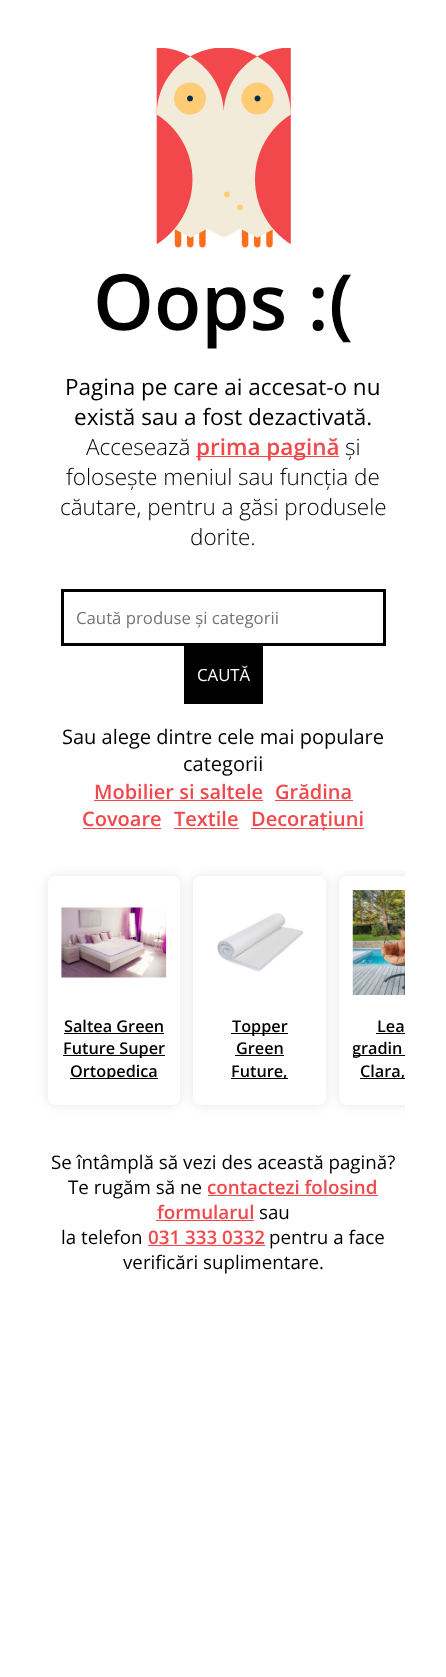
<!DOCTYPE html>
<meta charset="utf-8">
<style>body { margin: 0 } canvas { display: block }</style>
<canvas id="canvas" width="446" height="1677"></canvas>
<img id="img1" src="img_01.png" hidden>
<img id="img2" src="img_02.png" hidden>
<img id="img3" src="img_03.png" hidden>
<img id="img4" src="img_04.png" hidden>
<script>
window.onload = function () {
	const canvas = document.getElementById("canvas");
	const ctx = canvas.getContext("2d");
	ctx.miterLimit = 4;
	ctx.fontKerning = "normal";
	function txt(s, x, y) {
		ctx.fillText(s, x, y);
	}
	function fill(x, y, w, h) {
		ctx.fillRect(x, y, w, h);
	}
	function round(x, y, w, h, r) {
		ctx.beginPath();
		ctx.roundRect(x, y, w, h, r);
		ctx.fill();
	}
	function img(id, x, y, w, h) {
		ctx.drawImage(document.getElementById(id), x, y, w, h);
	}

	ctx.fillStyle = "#FFFFFF";
	fill(0, 0, 446, 1677);
	img("img1", 156, 48, 135, 200);
	ctx.fillStyle = "#F2484B";
	fill(196, 456, 143, 1);
	ctx.strokeStyle = "#000000";
	ctx.lineWidth = 3;
	ctx.strokeRect(62.5, 590.5, 322, 54);
	ctx.fillStyle = "#000000";
	fill(184, 646, 79, 58);
	ctx.fillStyle = "#F2484B";
	fill(94, 800, 169, 1);
	fill(275, 800, 78, 1);
	fill(83, 828, 78, 1);
	fill(174, 828, 65, 1);
	fill(251, 828, 113, 1);
	ctx.fillStyle = "rgba(0, 0, 0, 0.1)";
	ctx.filter = "blur(6px)";
	ctx.beginPath();
	ctx.roundRect(48, 876, 132, 229, 8);
	ctx.fill();
	ctx.filter = "none";
	ctx.fillStyle = "#FFFFFF";
	round(48, 876, 132, 229, 8);
	img("img2", 61, 907, 106, 71);
	ctx.fillStyle = "#000000";
	fill(64, 1033, 100, 1);
	fill(63, 1055, 102, 1);
	fill(70, 1078, 88, 1);
	ctx.fillStyle = "rgba(0, 0, 0, 0.1)";
	ctx.filter = "blur(6px)";
	ctx.beginPath();
	ctx.roundRect(193, 876, 133, 229, 8);
	ctx.fill();
	ctx.filter = "none";
	ctx.fillStyle = "#FFFFFF";
	round(193, 876, 133, 229, 8);
	img("img3", 217, 913, 87, 59);
	ctx.fillStyle = "#000000";
	fill(231, 1033, 57, 1);
	fill(235, 1055, 49, 1);
	fill(231, 1078, 57, 1);
	ctx.save();
	ctx.beginPath();
	ctx.rect(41, 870, 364, 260);
	ctx.clip();
	ctx.fillStyle = "rgba(0, 0, 0, 0.1)";
	ctx.filter = "blur(6px)";
	ctx.beginPath();
	ctx.roundRect(339, 876, 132, 229, 8);
	ctx.fill();
	ctx.filter = "none";
	ctx.restore();
	ctx.fillStyle = "#FFFFFF";
	ctx.beginPath();
	ctx.roundRect(339, 876, 66, 229, [8, 0, 0, 8]);
	ctx.fill();
	img("img4", 352, 890, 53, 105);
	ctx.fillStyle = "#000000";
	fill(376, 1033, 29, 1);
	fill(353, 1055, 52, 1);
	fill(360, 1078, 45, 1);
	ctx.fillStyle = "#F2484B";
	fill(208, 1195, 170, 1);
	fill(156, 1220, 98, 1);
	fill(148, 1245, 117, 1);
	ctx.font = "600 77.5px Open Sans";
	ctx.fillStyle = "#000000";
	txt("Oops :(", 93, 330);
	ctx.font = "22.5px Open Sans";
	txt("Pagina pe care ai accesat-o nu", 65, 395);
	txt("există sau a fost dezactivată.", 74, 425);
	ctx.font = "300 22.5px Open Sans";
	txt("Accesează", 86, 455);
	ctx.font = "600 22.5px Open Sans";
	ctx.fillStyle = "#F2484B";
	txt("prima pagină", 196, 455);
	ctx.font = "300 22.5px Open Sans";
	ctx.fillStyle = "#000000";
	txt("și", 345, 455);
	txt("folosește meniul sau funcția de", 66, 485);
	txt("căutare, pentru a găsi produsele", 60, 515);
	txt("dorite.", 190, 545);
	ctx.font = "16.75px Open Sans";
	ctx.fillStyle = "#757575";
	txt("Caută produse și categorii", 76, 624);
	ctx.fillStyle = "#FFFFFF";
	txt("CAUTĂ", 197, 681);
	ctx.font = "20px Open Sans";
	ctx.fillStyle = "#000000";
	txt("Sau alege dintre cele mai populare", 62, 744);
	txt("categorii", 183, 771);
	ctx.font = "600 20px Open Sans";
	ctx.fillStyle = "#F2484B";
	txt("Mobilier si saltele", 94, 799);
	txt("Grădina", 275, 799);
	txt("Covoare", 82, 826);
	txt("Textile", 174, 826);
	txt("Decorațiuni", 251, 826);
	ctx.font = "600 16.25px Open Sans";
	ctx.fillStyle = "#000000";
	txt("Saltea Green", 64, 1032);
	txt("Future Super", 63, 1054);
	ctx.save();
	ctx.beginPath();
	ctx.rect(61, 1014, 105, 65);
	ctx.clip();
	txt("Ortopedica", 70, 1077);
	ctx.restore();
	txt("Topper", 232, 1032);
	txt("Green", 236, 1054);
	txt("Future,", 231, 1077);
	txt("Lea", 377, 1032);
	ctx.save();
	ctx.beginPath();
	ctx.rect(353, 1014, 52, 65);
	ctx.clip();
	txt("gradin", 352, 1054);
	ctx.restore();
	txt("Clara,", 360, 1077);
	ctx.font = "18.75px Open Sans";
	txt("Se întâmplă să vezi des această pagină?", 51, 1169);
	txt("Te rugăm să ne", 68, 1194);
	ctx.font = "600 18.75px Open Sans";
	ctx.fillStyle = "#F2484B";
	txt("contactezi folosind", 207, 1194);
	txt("formularul", 157, 1219);
	ctx.font = "18.75px Open Sans";
	ctx.fillStyle = "#000000";
	txt("sau", 259, 1219);
	txt("la telefon", 61, 1244);
	ctx.font = "600 18.75px Open Sans";
	ctx.fillStyle = "#F2484B";
	txt("031 333 0332", 148, 1244);
	ctx.font = "18.75px Open Sans";
	ctx.fillStyle = "#000000";
	txt("pentru a face", 269, 1244);
	txt("verificări suplimentare.", 123, 1269);
};
</script>
